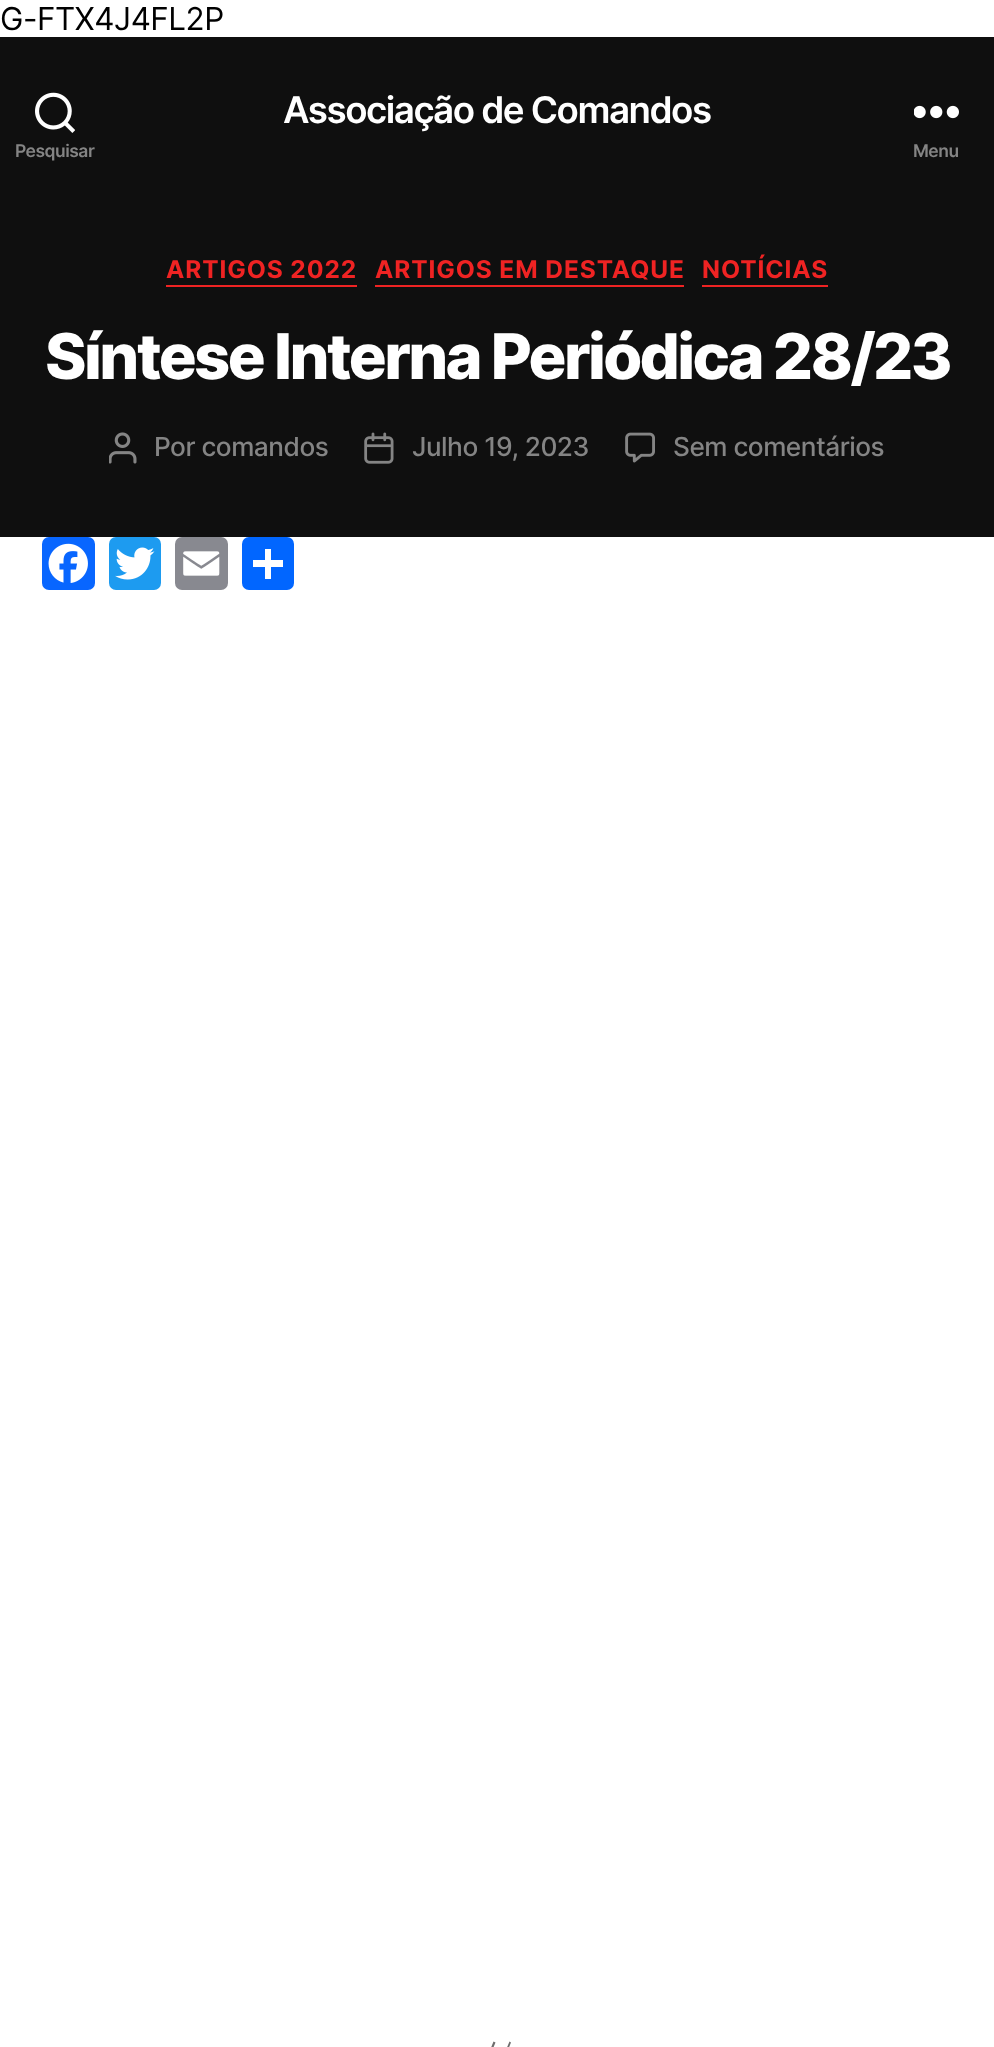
<!DOCTYPE html>
<meta charset="utf-8">
<style>body { margin: 0 } canvas { display: block }</style>
<canvas id="canvas" width="994" height="2047"></canvas>
<img id="img1" src="img_01.png" hidden>
<img id="img2" src="img_02.png" hidden>
<img id="img3" src="img_03.png" hidden>
<img id="img4" src="img_04.png" hidden>
<img id="img5" src="img_05.png" hidden>
<img id="img6" src="img_06.png" hidden>
<img id="img7" src="img_07.png" hidden>
<img id="img8" src="img_08.png" hidden>
<script>
window.onload = function () {
	const canvas = document.getElementById("canvas");
	const ctx = canvas.getContext("2d");
	ctx.miterLimit = 4;
	ctx.fontKerning = "normal";
	function txt(s, x, y) {
		ctx.fillText(s, x, y);
	}
	function fill(x, y, w, h) {
		ctx.fillRect(x, y, w, h);
	}
	function round(x, y, w, h, r) {
		ctx.beginPath();
		ctx.roundRect(x, y, w, h, r);
		ctx.fill();
	}
	function img(id, x, y, w, h) {
		ctx.drawImage(document.getElementById(id), x, y, w, h);
	}

	ctx.fillStyle = "#FFFFFF";
	fill(0, 0, 994, 2047);
	ctx.fillStyle = "#0F0F0F";
	fill(0, 37, 994, 500);
	img("img1", 35, 92, 40, 41);
	img("img2", 914, 105, 45, 14);
	ctx.fillStyle = "#EF2323";
	fill(166, 285, 191, 2);
	fill(375, 285, 309, 2);
	fill(702, 285, 126, 2);
	img("img3", 109, 432, 28, 32);
	img("img4", 364, 432, 30, 32);
	img("img5", 625, 432, 30, 31);
	ctx.fillStyle = "#0866FF";
	round(42, 537, 53, 53, 7);
	img("img6", 48, 543, 40, 40);
	ctx.fillStyle = "#1D9BF0";
	round(109, 537, 52, 53, 7);
	img("img7", 115, 547, 40, 33);
	ctx.fillStyle = "#888990";
	round(175, 537, 53, 53, 7);
	img("img8", 183, 551, 37, 25);
	ctx.fillStyle = "#0166FF";
	round(242, 537, 52, 53, 7);
	ctx.fillStyle = "#FFFFFF";
	fill(265, 549, 6, 30);
	fill(253, 560, 30, 7);
	ctx.fillStyle = "#6D6D6D";
	ctx.beginPath();
	ctx.moveTo(493.5, 2041.5);
	ctx.lineTo(495.5, 2042.5);
	ctx.lineTo(484.5, 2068.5);
	ctx.lineTo(483, 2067.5);
	ctx.closePath();
	ctx.moveTo(509.5, 2041.5);
	ctx.lineTo(511, 2042.5);
	ctx.lineTo(500.5, 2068.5);
	ctx.lineTo(498.5, 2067.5);
	ctx.closePath();
	ctx.fill();
	ctx.letterSpacing = "-0.5px";
	ctx.font = "31.5px Inter";
	ctx.fillStyle = "#000000";
	txt("G-FTX4J4FL2P", 0, 30);
	ctx.letterSpacing = "-1.5px";
	ctx.font = "600 36.75px Inter";
	ctx.fillStyle = "#FFFFFF";
	txt("Associação de Comandos", 283, 123);
	ctx.letterSpacing = "-0.5px";
	ctx.font = "600 17.5px Inter";
	ctx.fillStyle = "#848484";
	txt("Pesquisar", 15, 157);
	txt("Menu", 913, 157);
	ctx.letterSpacing = "0.9px";
	ctx.font = "bold 24.5px Inter";
	ctx.fillStyle = "#EF2323";
	txt("ARTIGOS 2022", 166, 278);
	txt("ARTIGOS EM DESTAQUE", 375, 278);
	txt("NOTÍCIAS", 702, 278);
	ctx.letterSpacing = "-2.6px";
	ctx.font = "800 63px Inter";
	ctx.fillStyle = "#FFFFFF";
	txt("Síntese Interna Periódica 28/23", 45, 379);
	ctx.letterSpacing = "-0.5px";
	ctx.font = "500 26.25px Inter";
	ctx.fillStyle = "#848484";
	txt("Por comandos", 154, 456);
	txt("Julho 19, 2023", 412, 456);
	txt("Sem comentários", 673, 456);
};
</script>
